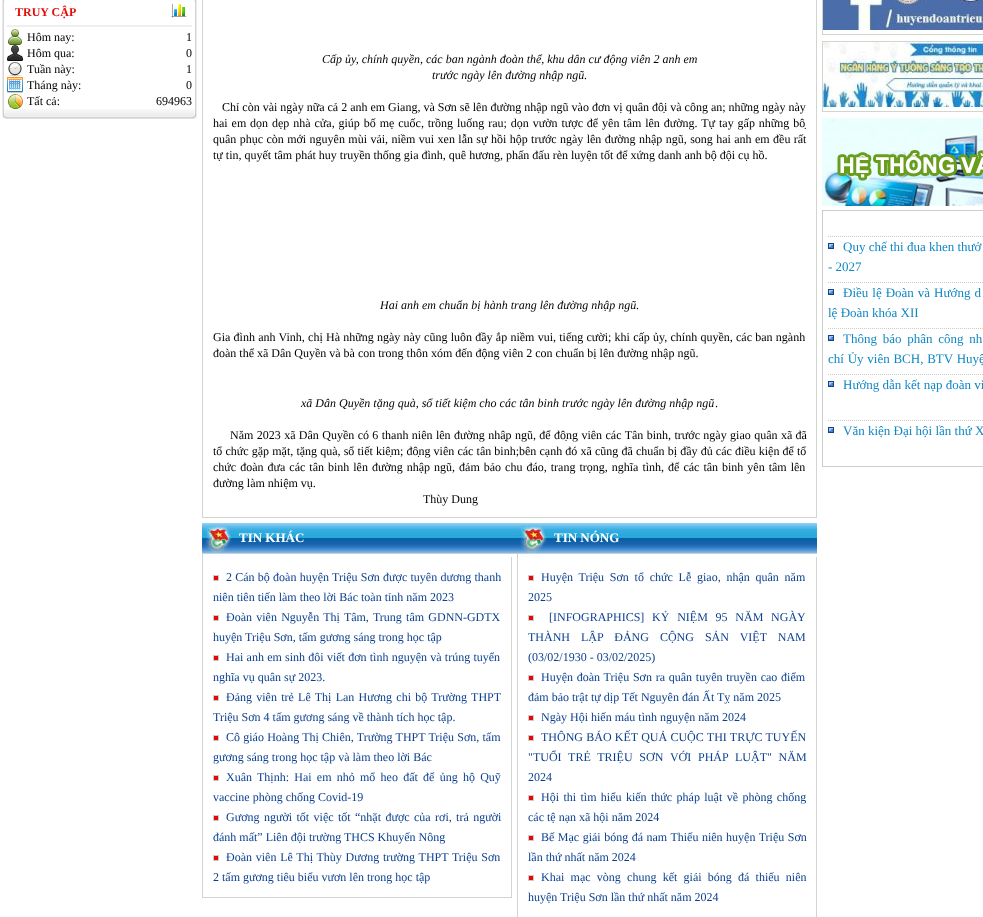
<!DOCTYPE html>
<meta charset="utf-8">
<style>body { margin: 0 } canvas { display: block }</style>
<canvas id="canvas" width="983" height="917"></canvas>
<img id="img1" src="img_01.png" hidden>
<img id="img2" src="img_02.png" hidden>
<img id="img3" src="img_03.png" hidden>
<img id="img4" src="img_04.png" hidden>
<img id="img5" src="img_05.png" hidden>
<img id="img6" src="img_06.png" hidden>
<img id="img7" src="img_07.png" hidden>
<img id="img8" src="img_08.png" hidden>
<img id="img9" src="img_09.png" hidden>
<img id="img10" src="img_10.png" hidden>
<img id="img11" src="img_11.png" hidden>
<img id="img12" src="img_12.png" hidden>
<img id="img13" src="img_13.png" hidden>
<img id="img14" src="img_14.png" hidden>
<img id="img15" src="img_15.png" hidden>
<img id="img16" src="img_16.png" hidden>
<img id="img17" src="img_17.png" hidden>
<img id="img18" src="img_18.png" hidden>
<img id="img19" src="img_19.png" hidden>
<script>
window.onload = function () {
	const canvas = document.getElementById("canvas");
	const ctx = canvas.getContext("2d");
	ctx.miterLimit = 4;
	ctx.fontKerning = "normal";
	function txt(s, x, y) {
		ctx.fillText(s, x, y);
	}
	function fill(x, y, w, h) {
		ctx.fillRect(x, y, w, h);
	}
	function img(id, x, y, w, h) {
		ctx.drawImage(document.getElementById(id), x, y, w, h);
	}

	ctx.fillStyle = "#FFFFFF";
	fill(0, 0, 983, 917);
	img("img1", 2, 0, 3, 29);
	img("img2", 194, 0, 3, 29);
	ctx.fillStyle = "#EFEFEF";
	fill(7, 25, 185, 2);
	img("img3", 171, 3, 16, 15);
	img("img4", 2, 29, 2, 80);
	img("img5", 195, 29, 2, 80);
	img("img6", 8, 29, 14, 16);
	img("img7", 7, 45, 16, 16);
	img("img8", 8, 62, 14, 15);
	img("img9", 7, 77, 16, 16);
	img("img10", 8, 94, 15, 15);
	img("img11", 2, 109, 5, 10);
	img("img12", 192, 109, 5, 10);
	img("img13", 7, 109, 185, 10);
	ctx.fillStyle = "#D0D5CE";
	fill(816, 0, 1, 518);
	fill(202, 517, 615, 1);
	fill(202, 0, 1, 518);
	img("img14", 202, 523, 315, 34);
	fill(511, 557, 1, 341);
	fill(202, 897, 310, 1);
	fill(202, 557, 1, 341);
	ctx.strokeStyle = "#CCCCCC";
	ctx.strokeRect(213.5, 575.5, 5, 5);
	ctx.fillStyle = "#E70606";
	fill(214, 576, 4, 4);
	ctx.strokeRect(213.5, 615.5, 5, 5);
	fill(214, 616, 4, 4);
	ctx.strokeRect(213.5, 655.5, 5, 5);
	fill(214, 656, 4, 4);
	ctx.strokeRect(213.5, 695.5, 5, 5);
	fill(214, 696, 4, 4);
	ctx.strokeRect(213.5, 735.5, 5, 5);
	fill(214, 736, 4, 4);
	ctx.strokeRect(213.5, 775.5, 5, 5);
	fill(214, 776, 4, 4);
	ctx.strokeRect(213.5, 815.5, 5, 5);
	fill(214, 816, 4, 4);
	ctx.strokeRect(213.5, 855.5, 5, 5);
	fill(214, 856, 4, 4);
	img("img15", 517, 523, 300, 34);
	ctx.fillStyle = "#D0D5CE";
	fill(816, 557, 1, 360);
	fill(517, 557, 1, 360);
	ctx.strokeRect(528.5, 575.5, 5, 5);
	ctx.fillStyle = "#E70606";
	fill(529, 576, 4, 4);
	ctx.strokeRect(528.5, 615.5, 5, 5);
	fill(529, 616, 4, 4);
	ctx.strokeRect(528.5, 675.5, 5, 5);
	fill(529, 676, 4, 4);
	ctx.strokeRect(528.5, 715.5, 5, 5);
	fill(529, 716, 4, 4);
	ctx.strokeRect(528.5, 735.5, 5, 5);
	fill(529, 736, 4, 4);
	ctx.strokeRect(528.5, 795.5, 5, 5);
	fill(529, 796, 4, 4);
	ctx.strokeRect(528.5, 835.5, 5, 5);
	fill(529, 836, 4, 4);
	ctx.strokeRect(528.5, 875.5, 5, 5);
	fill(529, 876, 4, 4);
	ctx.strokeStyle = "#D0D5CE";
	ctx.strokeRect(822.5, -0.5, 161, 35);
	img("img16", 823, 0, 160, 30);
	ctx.strokeRect(822.5, 41.5, 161, 70);
	img("img17", 823, 42, 160, 65);
	img("img18", 822, 118, 161, 88);
	ctx.strokeStyle = "#CCCCCC";
	ctx.strokeRect(822.5, 210.5, 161, 256);
	ctx.beginPath();
	ctx.moveTo(828, 236.5);
	ctx.lineTo(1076, 236.5);
	ctx.setLineDash([1, 1]);
	ctx.stroke();
	ctx.beginPath();
	ctx.moveTo(828, 282.5);
	ctx.lineTo(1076, 282.5);
	ctx.stroke();
	img("img19", 828, 243, 6, 6);
	ctx.beginPath();
	ctx.moveTo(828, 328.5);
	ctx.lineTo(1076, 328.5);
	ctx.stroke();
	img("img19", 828, 289, 6, 6);
	ctx.beginPath();
	ctx.moveTo(828, 374.5);
	ctx.lineTo(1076, 374.5);
	ctx.stroke();
	img("img19", 828, 335, 6, 6);
	ctx.beginPath();
	ctx.moveTo(828, 420.5);
	ctx.lineTo(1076, 420.5);
	ctx.stroke();
	img("img19", 828, 381, 6, 6);
	img("img19", 828, 427, 6, 6);
	ctx.font = "bold 12px Liberation Serif";
	ctx.fillStyle = "#E40D0C";
	txt("TRUY CẬP", 15, 16);
	ctx.font = "12px Liberation Serif";
	ctx.fillStyle = "#000000";
	txt("Hôm nay:", 27, 41);
	txt("1", 186, 41);
	txt("Hôm qua:", 27, 57);
	txt("0", 186, 57);
	txt("Tuần này:", 27, 73);
	txt("1", 186, 73);
	txt("Tháng này:", 27, 89);
	txt("0", 186, 89);
	txt("Tất cả:", 27, 105);
	txt("694963", 156, 105);
	ctx.font = "italic 12px Liberation Serif";
	txt("Cấp ủy, chính quyền, các ban ngành đoàn thể, khu dân cư động viên 2 anh em", 322, 63);
	txt("trước ngày lên đường nhập ngũ.", 432, 79);
	ctx.font = "12px Liberation Serif";
	txt("Chỉ còn vài ngày nữa cả 2 anh em Giang, và Sơn sẽ lên đường nhập ngũ vào đơn vị quân đội và công an; những ngày này", 222, 111);
	ctx.wordSpacing = "0.9px";
	txt("hai em dọn dẹp nhà cửa, giúp bố mẹ cuốc, trồng luống rau; dọn vườn tược để yên tâm lên đường. Tự tay gấp những bộ", 213, 127);
	ctx.wordSpacing = "0.4px";
	txt("quân phục còn mới nguyên mùi vải, niềm vui xen lẫn sự hồi hộp trước ngày lên đường nhập ngũ, song hai anh em đều rất", 213, 143);
	ctx.wordSpacing = "0px";
	txt("tự tin, quyết tâm phát huy truyền thống gia đình, quê hương, phấn đấu rèn luyện tốt để xứng danh anh bộ đội cụ hồ.", 213, 159);
	ctx.font = "italic 12px Liberation Serif";
	txt("Hai anh em chuẩn bị hành trang lên đường nhập ngũ.", 380, 309);
	ctx.wordSpacing = "0.25px";
	ctx.font = "12px Liberation Serif";
	txt("Gia đình anh Vinh, chị Hà những ngày này cũng luôn đầy ắp niềm vui, tiếng cười; khi cấp ủy, chính quyền, các ban ngành", 213, 341);
	ctx.wordSpacing = "0px";
	txt("đoàn thể xã Dân Quyền và bà con trong thôn xóm đến động viên 2 con chuẩn bị lên đường nhập ngũ.", 213, 357);
	ctx.font = "italic 12px Liberation Serif";
	txt("xã Dân Quyền tặng quà, sổ tiết kiệm cho các tân binh trước ngày lên đường nhập ngũ", 301, 407);
	ctx.font = "12px Liberation Serif";
	txt(".", 715, 407);
	ctx.wordSpacing = "0.4px";
	txt("Năm 2023 xã Dân Quyền có 6 thanh niên lên đường nhập ngũ, để động viên các Tân binh, trước ngày giao quân xã đã", 230, 439);
	ctx.wordSpacing = "0.15px";
	txt("tổ chức gặp mặt, tặng quà, sổ tiết kiệm; động viên các tân binh;bên cạnh đó xã cũng đã chuẩn bị đầy đủ các điều kiện để tổ", 213, 455);
	ctx.wordSpacing = "1px";
	txt("chức đoàn đưa các tân binh lên đường nhập ngũ, đảm bảo chu đáo, trang trọng, nghĩa tình, để các tân binh yên tâm lên", 213, 471);
	ctx.wordSpacing = "0px";
	txt("đường làm nhiệm vụ.", 213, 487);
	txt("Thùy Dung", 423, 503);
	ctx.font = "bold 13px Liberation Serif";
	ctx.fillStyle = "#FFFFFF";
	txt("TIN KHÁC", 239, 542);
	ctx.wordSpacing = "0.25px";
	ctx.font = "12px Liberation Serif";
	ctx.fillStyle = "#0B4090";
	txt("2 Cán bộ đoàn huyện Triệu Sơn được tuyên dương thanh", 226, 581);
	ctx.wordSpacing = "0px";
	txt("niên tiên tiến làm theo lời Bác toàn tỉnh năm 2023", 213, 601);
	ctx.wordSpacing = "1.25px";
	txt("Đoàn viên Nguyễn Thị Tâm, Trung tâm GDNN-GDTX", 226, 621);
	ctx.wordSpacing = "0px";
	txt("huyện Triệu Sơn, tấm gương sáng trong học tập", 213, 641);
	ctx.wordSpacing = "0.25px";
	txt("Hai anh em sinh đôi viết đơn tình nguyện và trúng tuyển", 226, 661);
	ctx.wordSpacing = "0px";
	txt("nghĩa vụ quân sự 2023.", 213, 681);
	ctx.wordSpacing = "1.25px";
	txt("Đảng viên trẻ Lê Thị Lan Hương chi bộ Trường THPT", 226, 701);
	ctx.wordSpacing = "0px";
	txt("Triệu Sơn 4 tấm gương sáng về thành tích học tập.", 213, 721);
	ctx.wordSpacing = "0.25px";
	txt("Cô giáo Hoàng Thị Chiên, Trường THPT Triệu Sơn, tấm", 226, 741);
	ctx.wordSpacing = "0px";
	txt("gương sáng trong học tập và làm theo lời Bác", 213, 761);
	ctx.wordSpacing = "2.25px";
	txt("Xuân Thịnh: Hai em nhỏ mổ heo đất để ủng hộ Quỹ", 226, 781);
	ctx.wordSpacing = "0px";
	txt("vaccine phòng chống Covid-19", 213, 801);
	ctx.wordSpacing = "1.4px";
	txt("Gương người tốt việc tốt “nhặt được của rơi, trả người", 226, 821);
	ctx.wordSpacing = "0px";
	txt("đánh mất” Liên đội trường THCS Khuyến Nông", 213, 841);
	ctx.wordSpacing = "0.75px";
	txt("Đoàn viên Lê Thị Thùy Dương trường THPT Triệu Sơn", 226, 861);
	ctx.wordSpacing = "0px";
	txt("2 tấm gương tiêu biểu vươn lên trong học tập", 213, 881);
	ctx.font = "bold 13px Liberation Serif";
	ctx.fillStyle = "#FFFFFF";
	txt("TIN NÓNG", 554, 542);
	ctx.wordSpacing = "2.75px";
	ctx.font = "12px Liberation Serif";
	ctx.fillStyle = "#0B4090";
	txt("Huyện Triệu Sơn tổ chức Lễ giao, nhận quân năm", 541, 581);
	ctx.wordSpacing = "0px";
	txt("2025", 528, 601);
	ctx.wordSpacing = "4.75px";
	txt("[INFOGRAPHICS] KỶ NIỆM 95 NĂM NGÀY", 549, 621);
	ctx.wordSpacing = "8px";
	txt("THÀNH LẬP ĐẢNG CỘNG SẢN VIỆT NAM", 528, 641);
	ctx.wordSpacing = "0px";
	txt("(03/02/1930 - 03/02/2025)", 528, 661);
	ctx.wordSpacing = "0.75px";
	txt("Huyện đoàn Triệu Sơn ra quân tuyên truyền cao điểm", 541, 681);
	ctx.wordSpacing = "0px";
	txt("đảm bảo trật tự dịp Tết Nguyên đán Ất Tỵ năm 2025", 528, 701);
	txt("Ngày Hội hiến máu tình nguyện năm 2024", 541, 721);
	ctx.wordSpacing = "0.25px";
	txt("THÔNG BÁO KẾT QUẢ CUỘC THI TRỰC TUYẾN", 541, 741);
	ctx.wordSpacing = "3.75px";
	txt("\"TUỔI TRẺ TRIỆU SƠN VỚI PHÁP LUẬT\" NĂM", 528, 761);
	ctx.wordSpacing = "0px";
	txt("2024", 528, 781);
	ctx.wordSpacing = "1.4px";
	txt("Hội thi tìm hiểu kiến thức pháp luật về phòng chống", 541, 801);
	ctx.wordSpacing = "0px";
	txt("các tệ nạn xã hội năm 2024", 528, 821);
	ctx.wordSpacing = "0.5px";
	txt("Bế Mạc giải bóng đá nam Thiếu niên huyện Triệu Sơn", 541, 841);
	ctx.wordSpacing = "0px";
	txt("lần thứ nhất năm 2024", 528, 861);
	ctx.wordSpacing = "3.25px";
	txt("Khai mạc vòng chung kết giải bóng đá thiếu niên", 541, 881);
	ctx.wordSpacing = "0px";
	txt("huyện Triệu Sơn lần thứ nhất năm 2024", 528, 901);
	ctx.font = "13px Liberation Serif";
	ctx.fillStyle = "#1087C4";
	txt("Quy chế thi đua khen thưở", 843, 251);
	txt("- 2027", 828, 271);
	ctx.wordSpacing = "0.75px";
	txt("Điều lệ Đoàn và Hướng d", 843, 297);
	ctx.wordSpacing = "0px";
	txt("lệ Đoàn khóa XII", 828, 317);
	ctx.wordSpacing = "2.5px";
	txt("Thông báo phân công nh", 843, 343);
	ctx.wordSpacing = "0.5px";
	txt("chí Ủy viên BCH, BTV Huyệ", 828, 363);
	ctx.wordSpacing = "0px";
	txt("Hướng dẫn kết nạp đoàn vi", 843, 389);
	txt("Văn kiện Đại hội lần thứ X", 843, 435);
};
</script>
